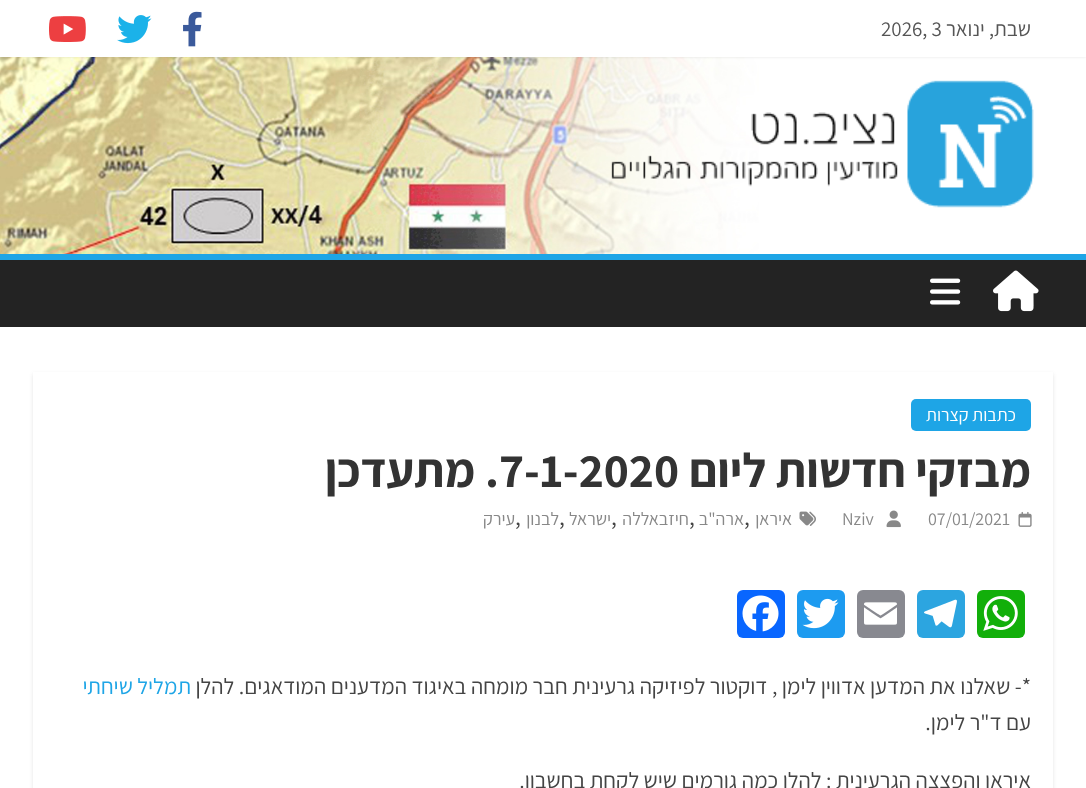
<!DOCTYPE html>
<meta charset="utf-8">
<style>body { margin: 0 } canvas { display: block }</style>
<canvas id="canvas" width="1086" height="788"></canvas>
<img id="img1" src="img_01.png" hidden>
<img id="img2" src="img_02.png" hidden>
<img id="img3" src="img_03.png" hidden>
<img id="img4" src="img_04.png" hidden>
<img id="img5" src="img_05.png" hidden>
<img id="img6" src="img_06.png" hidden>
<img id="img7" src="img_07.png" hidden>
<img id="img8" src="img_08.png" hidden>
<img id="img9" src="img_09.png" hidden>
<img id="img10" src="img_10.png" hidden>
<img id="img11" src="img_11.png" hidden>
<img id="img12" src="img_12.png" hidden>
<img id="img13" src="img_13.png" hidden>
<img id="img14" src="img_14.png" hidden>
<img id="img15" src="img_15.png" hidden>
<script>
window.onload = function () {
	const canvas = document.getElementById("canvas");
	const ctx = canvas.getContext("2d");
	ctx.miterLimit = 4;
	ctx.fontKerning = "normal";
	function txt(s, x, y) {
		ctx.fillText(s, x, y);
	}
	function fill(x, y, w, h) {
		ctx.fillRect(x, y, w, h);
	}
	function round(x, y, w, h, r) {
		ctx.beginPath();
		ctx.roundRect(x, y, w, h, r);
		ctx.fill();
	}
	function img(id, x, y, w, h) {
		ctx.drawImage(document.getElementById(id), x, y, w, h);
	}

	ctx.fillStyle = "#FFFFFF";
	fill(0, 0, 1086, 788);
	img("img1", 0, 57, 759, 197);
	ctx.fillStyle = "rgba(0, 0, 0, 0.1)";
	ctx.filter = "blur(1.5px)";
	ctx.beginPath();
	ctx.rect(0, 0, 1086, 57);
	ctx.fill();
	ctx.filter = "none";
	ctx.fillStyle = "#FFFFFF";
	fill(0, 0, 1086, 57);
	img("img2", 183, 11, 19, 36);
	img("img3", 117, 15, 35, 29);
	img("img4", 49, 16, 37, 26);
	img("img5", 611, 80, 423, 128);
	ctx.fillStyle = "#232323";
	fill(0, 260, 1086, 67);
	ctx.fillStyle = "#1EA5E6";
	fill(0, 254, 1086, 6);
	img("img6", 993, 270, 46, 42);
	img("img7", 930, 278, 31, 27);
	ctx.save();
	ctx.beginPath();
	ctx.moveTo(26, 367);
	ctx.lineTo(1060, 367);
	ctx.lineTo(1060, 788);
	ctx.lineTo(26, 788);
	ctx.closePath();
	ctx.moveTo(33, 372);
	ctx.lineTo(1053, 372);
	ctx.lineTo(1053, 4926);
	ctx.lineTo(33, 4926);
	ctx.closePath();
	ctx.clip("evenodd");
	ctx.fillStyle = "rgba(0, 0, 0, 0.1)";
	ctx.filter = "blur(2px)";
	ctx.beginPath();
	ctx.rect(33, 374, 1020, 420);
	ctx.fill();
	ctx.filter = "none";
	ctx.restore();
	round(911, 399, 120, 32, 5);
	img("img8", 1018, 511, 14, 16);
	img("img9", 886, 510, 15, 18);
	img("img10", 799, 511, 17, 15);
	ctx.fillStyle = "#12AF0A";
	round(977, 590, 48, 48, 6);
	img("img11", 983, 596, 35, 35);
	ctx.fillStyle = "#2CA5E0";
	round(917, 590, 48, 48, 6);
	img("img12", 924, 599, 33, 29);
	ctx.fillStyle = "#888990";
	round(857, 590, 48, 48, 6);
	img("img13", 864, 602, 33, 23);
	ctx.fillStyle = "#1D9BF0";
	round(797, 590, 48, 48, 6);
	img("img14", 802, 598, 37, 31);
	ctx.fillStyle = "#0866FF";
	round(737, 590, 48, 48, 6);
	img("img15", 742, 595, 37, 37);
	ctx.direction = "rtl";
	ctx.font = "21px Assistant";
	ctx.fillStyle = "#555555";
	txt("שבת, ינואר", 1031, 36);
	ctx.direction = "ltr";
	txt("2026, 3", 881, 36);
	ctx.direction = "rtl";
	ctx.font = "18px Assistant";
	ctx.fillStyle = "#FFFFFF";
	txt("כתבות קצרות", 1016, 421);
	ctx.font = "bold 48px Assistant";
	ctx.fillStyle = "#333333";
	txt("מבזקי חדשות ליום", 1031, 487);
	ctx.direction = "ltr";
	txt("7-1-2020", 499, 487);
	ctx.direction = "rtl";
	txt(". מתעדכן", 499, 487);
	ctx.direction = "ltr";
	ctx.font = "18px Assistant";
	ctx.fillStyle = "#888888";
	txt("07/01/2021", 928, 525);
	txt("Nziv", 842, 525);
	ctx.direction = "rtl";
	txt("איראן", 792, 525);
	ctx.direction = "ltr";
	ctx.font = "24px Assistant";
	ctx.fillStyle = "#444444";
	txt(",", 744, 525);
	ctx.direction = "rtl";
	ctx.font = "18px Assistant";
	ctx.fillStyle = "#888888";
	txt("ארה\"ב", 744, 525);
	ctx.direction = "ltr";
	ctx.font = "24px Assistant";
	ctx.fillStyle = "#444444";
	txt(",", 689, 525);
	ctx.direction = "rtl";
	ctx.font = "18px Assistant";
	ctx.fillStyle = "#888888";
	txt("חיזבאללה", 689, 525);
	ctx.direction = "ltr";
	ctx.font = "24px Assistant";
	ctx.fillStyle = "#444444";
	txt(",", 611, 525);
	ctx.direction = "rtl";
	ctx.font = "18px Assistant";
	ctx.fillStyle = "#888888";
	txt("ישראל", 611, 525);
	ctx.direction = "ltr";
	ctx.font = "24px Assistant";
	ctx.fillStyle = "#444444";
	txt(",", 559, 525);
	ctx.direction = "rtl";
	ctx.font = "18px Assistant";
	ctx.fillStyle = "#888888";
	txt("לבנון", 559, 525);
	ctx.direction = "ltr";
	ctx.font = "24px Assistant";
	ctx.fillStyle = "#444444";
	txt(",", 515, 525);
	ctx.direction = "rtl";
	ctx.font = "18px Assistant";
	ctx.fillStyle = "#888888";
	txt("עירק", 515, 525);
	ctx.font = "22.5px Assistant";
	ctx.fillStyle = "#444444";
	txt("*- שאלנו את המדען אדווין לימן , דוקטור לפיזיקה גרעינית חבר מומחה באיגוד המדענים המודאגים. להלן", 1031, 694);
	ctx.fillStyle = "#1EA5E6";
	txt("תמליל שיחתי", 191, 694);
	ctx.fillStyle = "#444444";
	txt("עם ד\"ר לימן.", 1031, 730);
	txt("איראן והפצצה הגרעינית : להלן כמה גורמים שיש לקחת בחשבון.", 1031, 788);
};
</script>
